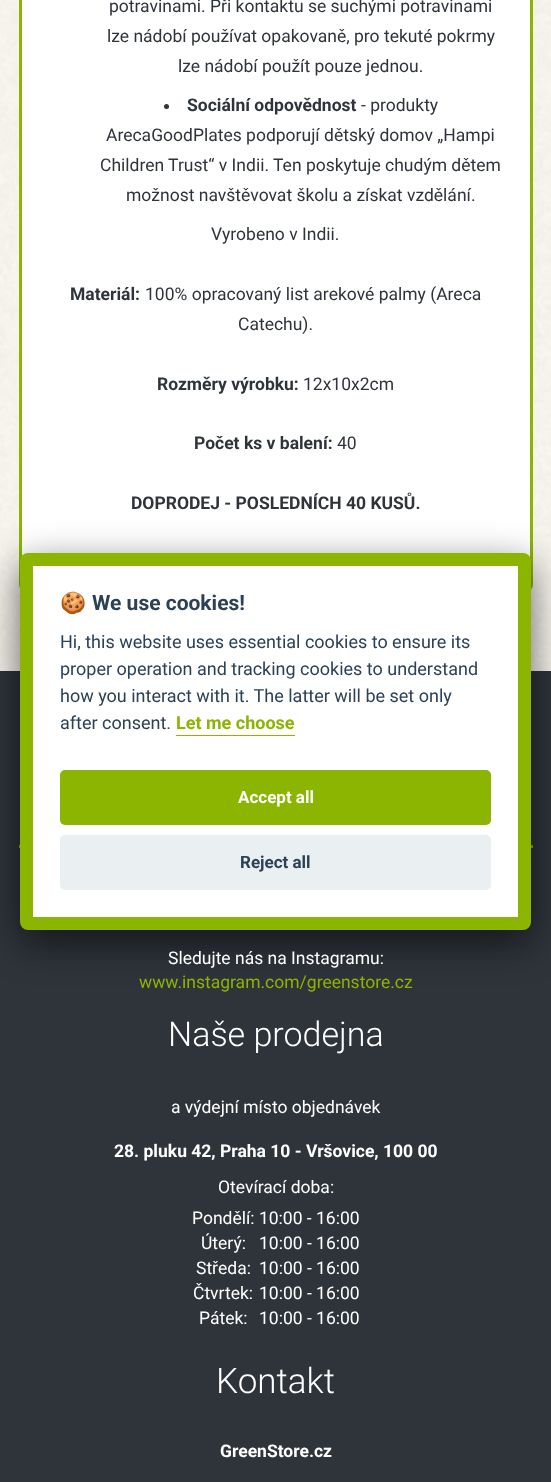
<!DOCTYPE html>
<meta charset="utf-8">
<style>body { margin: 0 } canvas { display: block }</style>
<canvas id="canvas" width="551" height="1482"></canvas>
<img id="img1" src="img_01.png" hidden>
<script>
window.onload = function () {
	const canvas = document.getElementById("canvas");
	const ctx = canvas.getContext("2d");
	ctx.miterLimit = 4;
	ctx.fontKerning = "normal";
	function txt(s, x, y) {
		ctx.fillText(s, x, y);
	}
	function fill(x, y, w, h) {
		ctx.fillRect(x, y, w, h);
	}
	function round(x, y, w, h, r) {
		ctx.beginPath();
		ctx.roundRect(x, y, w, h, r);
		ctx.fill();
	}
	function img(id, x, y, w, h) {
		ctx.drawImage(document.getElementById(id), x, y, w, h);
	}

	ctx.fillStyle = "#FFFFFF";
	fill(0, 0, 551, 1482);
	img("img1", 0, 0, 551, 671);
	ctx.beginPath();
	ctx.roundRect(20.5, -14.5, 511, 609, 11.5);
	ctx.fill();
	ctx.strokeStyle = "#8BB500";
	ctx.lineWidth = 3;
	ctx.stroke();
	ctx.fillStyle = "#2F343B";
	ctx.beginPath();
	ctx.arc(166.5, 106.5, 2.5, 0, Math.PI * 2);
	ctx.fill();
	fill(0, 671, 551, 811);
	ctx.fillStyle = "#8BB500";
	fill(19, 845, 514, 3);
	ctx.fillStyle = "rgba(2, 2, 3, 0.6)";
	ctx.filter = "blur(19px)";
	ctx.beginPath();
	ctx.roundRect(20, 565, 511, 378, 8);
	ctx.fill();
	ctx.filter = "none";
	ctx.fillStyle = "#FFFFFF";
	ctx.beginPath();
	ctx.roundRect(26.5, 559.5, 498, 364, 1.5);
	ctx.fill();
	ctx.lineWidth = 13;
	ctx.stroke();
	ctx.fillStyle = "#8BB500";
	fill(176, 735, 119, 1);
	round(60, 770, 431, 55, 5);
	ctx.fillStyle = "#EAEFF2";
	round(60, 835, 431, 55, 5);
	ctx.font = "17.5px Roboto";
	ctx.fillStyle = "#2F343B";
	txt("potravinami. Při kontaktu se suchými potravinami", 109, 12);
	txt("lze nádobí používat opakovaně, pro tekuté pokrmy", 107, 42);
	txt("lze nádobí použít pouze jednou.", 178, 72);
	ctx.font = "bold 17.5px Roboto";
	txt("Sociální odpovědnost", 187, 111);
	ctx.font = "17.5px Roboto";
	txt("- produkty", 361, 111);
	txt("ArecaGoodPlates podporují dětský domov „Hampi", 106, 141);
	txt("Children Trust“ v Indii. Ten poskytuje chudým dětem", 100, 171);
	txt("možnost navštěvovat školu a získat vzdělání.", 126, 201);
	txt("Vyrobeno v Indii.", 211, 240);
	ctx.font = "bold 17.5px Roboto";
	txt("Materiál:", 70, 300);
	ctx.font = "17.5px Roboto";
	txt("100% opracovaný list arekové palmy (Areca", 145, 300);
	txt("Catechu).", 238, 330);
	ctx.font = "bold 17.5px Roboto";
	txt("Rozměry výrobku:", 157, 390);
	ctx.font = "17.5px Roboto";
	txt("12x10x2cm", 303, 390);
	ctx.font = "bold 17.5px Roboto";
	txt("Počet ks v balení:", 194, 449);
	ctx.font = "17.5px Roboto";
	txt("40", 337, 449);
	ctx.font = "bold 17.5px Roboto";
	txt("DOPRODEJ - POSLEDNÍCH 40 KUSŮ.", 131, 509);
	ctx.font = "bold 21px Noto Color Emoji";
	ctx.fillStyle = "#2D4156";
	txt("🍪", 60, 610);
	ctx.font = "bold 21px Roboto";
	txt("We use cookies!", 92, 610);
	ctx.font = "18px Roboto";
	txt("Hi, this website uses essential cookies to ensure its", 60, 648);
	txt("proper operation and tracking cookies to understand", 60, 675);
	txt("how you interact with it. The latter will be set only", 60, 702);
	txt("after consent.", 60, 729);
	ctx.font = "bold 18px Roboto";
	ctx.fillStyle = "#8BB500";
	txt("Let me choose", 176, 729);
	ctx.font = "bold 17px Roboto";
	ctx.fillStyle = "#FFFFFF";
	txt("Accept all", 238, 803);
	ctx.fillStyle = "#2D4156";
	txt("Reject all", 240, 868);
	ctx.font = "17.5px Roboto";
	ctx.fillStyle = "#FFFFFF";
	txt("Sledujte nás na Instagramu:", 168, 964);
	ctx.fillStyle = "#8BB500";
	txt("www.instagram.com/greenstore.cz", 139, 988);
	ctx.font = "300 34px Roboto";
	ctx.fillStyle = "#FFFFFF";
	txt("Naše prodejna", 168, 1046);
	ctx.font = "17.5px Roboto";
	txt("a výdejní místo objednávek", 171, 1113);
	ctx.font = "bold 17.5px Roboto";
	txt("28. pluku 42, Praha 10 - Vršovice, 100 00", 114, 1157);
	ctx.font = "17.5px Roboto";
	txt("Otevírací doba:", 218, 1193);
	txt("Pondělí: 10:00 - 16:00", 192, 1224);
	txt("Úterý:", 201, 1249);
	txt("10:00 - 16:00", 259, 1249);
	txt("Středa:", 196, 1274);
	txt("10:00 - 16:00", 259, 1274);
	txt("Čtvrtek:", 193, 1299);
	txt("10:00 - 16:00", 259, 1299);
	txt("Pátek:", 199, 1324);
	txt("10:00 - 16:00", 259, 1324);
	ctx.font = "300 35px Roboto";
	txt("Kontakt", 216, 1393);
	ctx.font = "bold 17.5px Roboto";
	txt("GreenStore.cz", 220, 1457);
};
</script>
